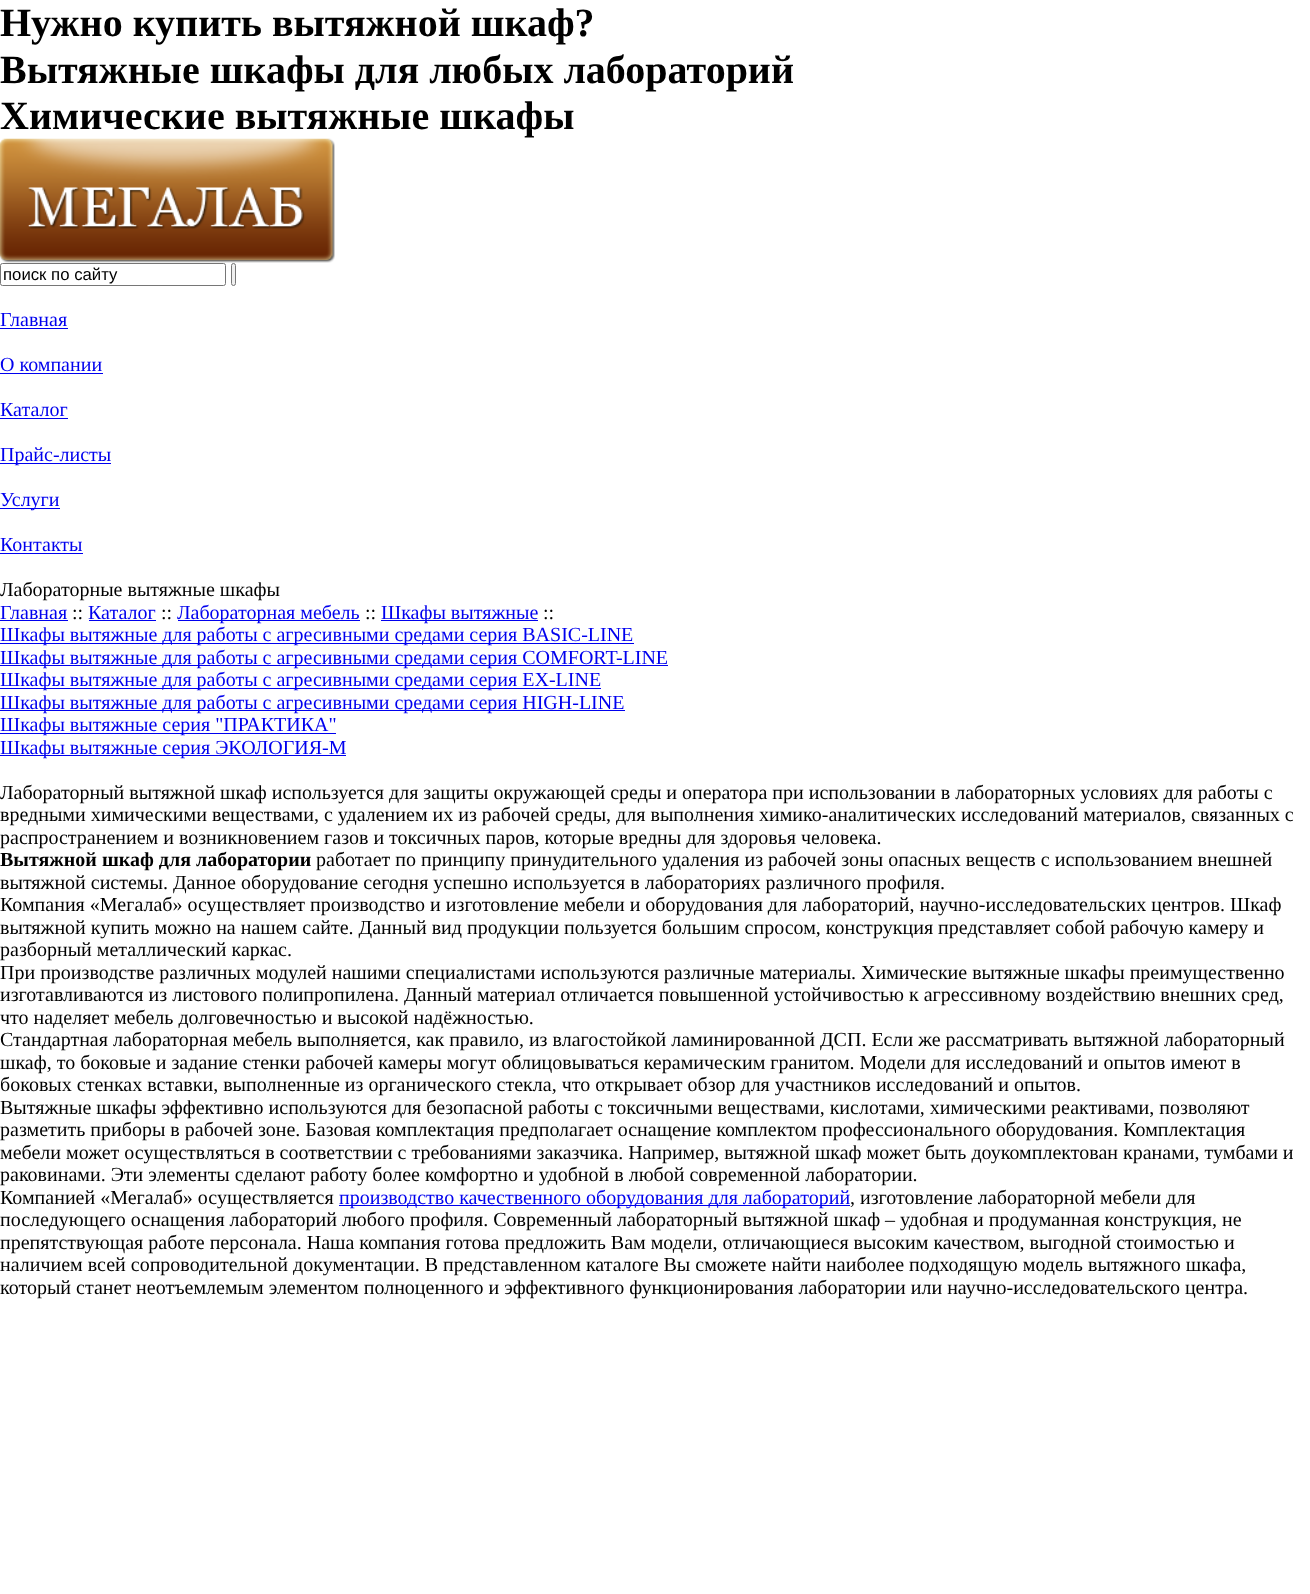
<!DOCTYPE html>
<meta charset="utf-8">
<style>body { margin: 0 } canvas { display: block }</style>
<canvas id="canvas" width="1310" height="1594"></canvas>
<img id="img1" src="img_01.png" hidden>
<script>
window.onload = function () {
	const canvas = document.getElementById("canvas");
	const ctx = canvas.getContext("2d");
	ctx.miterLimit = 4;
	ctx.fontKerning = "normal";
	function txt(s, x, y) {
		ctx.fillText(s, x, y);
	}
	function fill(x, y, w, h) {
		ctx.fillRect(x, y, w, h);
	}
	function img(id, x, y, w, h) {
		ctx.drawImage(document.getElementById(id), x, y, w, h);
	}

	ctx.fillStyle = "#FFFFFF";
	fill(0, 0, 1310, 1594);
	img("img1", 0, 138, 335, 125);
	ctx.beginPath();
	ctx.roundRect(0.5, 263.5, 225, 22, 2);
	ctx.strokeStyle = "#767676";
	ctx.stroke();
	ctx.fillStyle = "#EFEFEF";
	ctx.beginPath();
	ctx.roundRect(231.5, 263.5, 4, 22, 2);
	ctx.fill();
	ctx.stroke();
	ctx.fillStyle = "#0000EE";
	fill(0, 328, 68, 1);
	fill(0, 373, 103, 1);
	fill(0, 418, 68, 1);
	fill(0, 463, 111, 1);
	fill(0, 508, 60, 1);
	fill(0, 553, 83, 1);
	fill(0, 620, 68, 1);
	fill(89, 620, 67, 1);
	fill(178, 620, 182, 1);
	fill(381, 620, 157, 1);
	fill(0, 643, 634, 1);
	fill(0, 665, 668, 1);
	fill(0, 688, 601, 1);
	fill(0, 710, 625, 1);
	fill(0, 733, 336, 1);
	fill(0, 755, 346, 1);
	fill(339, 1205, 511, 1);
	ctx.font = "bold 40px Liberation Serif";
	ctx.fillStyle = "#000000";
	txt("Нужно купить вытяжной шкаф?", 0, 36);
	txt("Вытяжные шкафы для любых лабораторий", 0, 83);
	txt("Химические вытяжные шкафы", 0, 129);
	ctx.font = "16.75px Liberation Sans";
	txt("поиск по сайту", 3, 280);
	ctx.font = "20px Liberation Serif";
	ctx.fillStyle = "#0000EE";
	txt("Главная", 0, 326);
	txt("О компании", 0, 371);
	txt("Каталог", 0, 416);
	txt("Прайс-листы", 0, 461);
	txt("Услуги", 0, 506);
	txt("Контакты", 0, 551);
	ctx.fillStyle = "#000000";
	txt("Лабораторные вытяжные шкафы", 0, 596);
	ctx.fillStyle = "#0000EE";
	txt("Главная", 0, 619);
	ctx.fillStyle = "#000000";
	txt("::", 72, 619);
	ctx.fillStyle = "#0000EE";
	txt("Каталог", 88, 619);
	ctx.fillStyle = "#000000";
	txt("::", 161, 619);
	ctx.fillStyle = "#0000EE";
	txt("Лабораторная мебель", 177, 619);
	ctx.fillStyle = "#000000";
	txt("::", 365, 619);
	ctx.fillStyle = "#0000EE";
	txt("Шкафы вытяжные", 381, 619);
	ctx.fillStyle = "#000000";
	txt("::", 543, 619);
	ctx.fillStyle = "#0000EE";
	txt("Шкафы вытяжные для работы с агресивными средами серия BASIC-LINE", 0, 641);
	txt("Шкафы вытяжные для работы с агресивными средами серия COMFORT-LINE", 0, 664);
	txt("Шкафы вытяжные для работы с агресивными средами серия EX-LINE", 0, 686);
	txt("Шкафы вытяжные для работы с агресивными средами серия HIGH-LINE", 0, 709);
	txt("Шкафы вытяжные серия \"ПРАКТИКА\"", 0, 731);
	txt("Шкафы вытяжные серия ЭКОЛОГИЯ-М", 0, 754);
	ctx.fillStyle = "#000000";
	txt("Лабораторный вытяжной шкаф используется для защиты окружающей среды и оператора при использовании в лабораторных условиях для работы с", 0, 799);
	txt("вредными химическими веществами, с удалением их из рабочей среды, для выполнения химико-аналитических исследований материалов, связанных с", 0, 821);
	txt("распространением и возникновением газов и токсичных паров, которые вредны для здоровья человека.", 0, 844);
	ctx.font = "bold 20px Liberation Serif";
	txt("Вытяжной шкаф для лаборатории", 0, 866);
	ctx.font = "20px Liberation Serif";
	txt("работает по принципу принудительного удаления из рабочей зоны опасных веществ с использованием внешней", 316, 866);
	txt("вытяжной системы. Данное оборудование сегодня успешно используется в лабораториях различного профиля.", 0, 889);
	txt("Компания «Мегалаб» осуществляет производство и изготовление мебели и оборудования для лабораторий, научно-исследовательских центров. Шкаф", 0, 911);
	txt("вытяжной купить можно на нашем сайте. Данный вид продукции пользуется большим спросом, конструкция представляет собой рабочую камеру и", 0, 934);
	txt("разборный металлический каркас.", 0, 956);
	txt("При производстве различных модулей нашими специалистами используются различные материалы. Химические вытяжные шкафы преимущественно", 0, 979);
	txt("изготавливаются из листового полипропилена. Данный материал отличается повышенной устойчивостью к агрессивному воздействию внешних сред,", 0, 1001);
	txt("что наделяет мебель долговечностью и высокой надёжностью.", 0, 1024);
	txt("Стандартная лабораторная мебель выполняется, как правило, из влагостойкой ламинированной ДСП. Если же рассматривать вытяжной лабораторный", 0, 1046);
	txt("шкаф, то боковые и задание стенки рабочей камеры могут облицовываться керамическим гранитом. Модели для исследований и опытов имеют в", 0, 1069);
	txt("боковых стенках вставки, выполненные из органического стекла, что открывает обзор для участников исследований и опытов.", 0, 1091);
	txt("Вытяжные шкафы эффективно используются для безопасной работы с токсичными веществами, кислотами, химическими реактивами, позволяют", 0, 1114);
	txt("разметить приборы в рабочей зоне. Базовая комплектация предполагает оснащение комплектом профессионального оборудования. Комплектация", 0, 1136);
	txt("мебели может осуществляться в соответствии с требованиями заказчика. Например, вытяжной шкаф может быть доукомплектован кранами, тумбами и", 0, 1159);
	txt("раковинами. Эти элементы сделают работу более комфортно и удобной в любой современной лаборатории.", 0, 1181);
	txt("Компанией «Мегалаб» осуществляется", 0, 1204);
	ctx.fillStyle = "#0000EE";
	txt("производство качественного оборудования для лабораторий", 339, 1204);
	ctx.fillStyle = "#000000";
	txt(", изготовление лабораторной мебели для", 850, 1204);
	txt("последующего оснащения лабораторий любого профиля. Современный лабораторный вытяжной шкаф – удобная и продуманная конструкция, не", 0, 1226);
	txt("препятствующая работе персонала. Наша компания готова предложить Вам модели, отличающиеся высоким качеством, выгодной стоимостью и", 0, 1249);
	txt("наличием всей сопроводительной документации. В представленном каталоге Вы сможете найти наиболее подходящую модель вытяжного шкафа,", 0, 1271);
	txt("который станет неотъемлемым элементом полноценного и эффективного функционирования лаборатории или научно-исследовательского центра.", 0, 1294);
};
</script>
